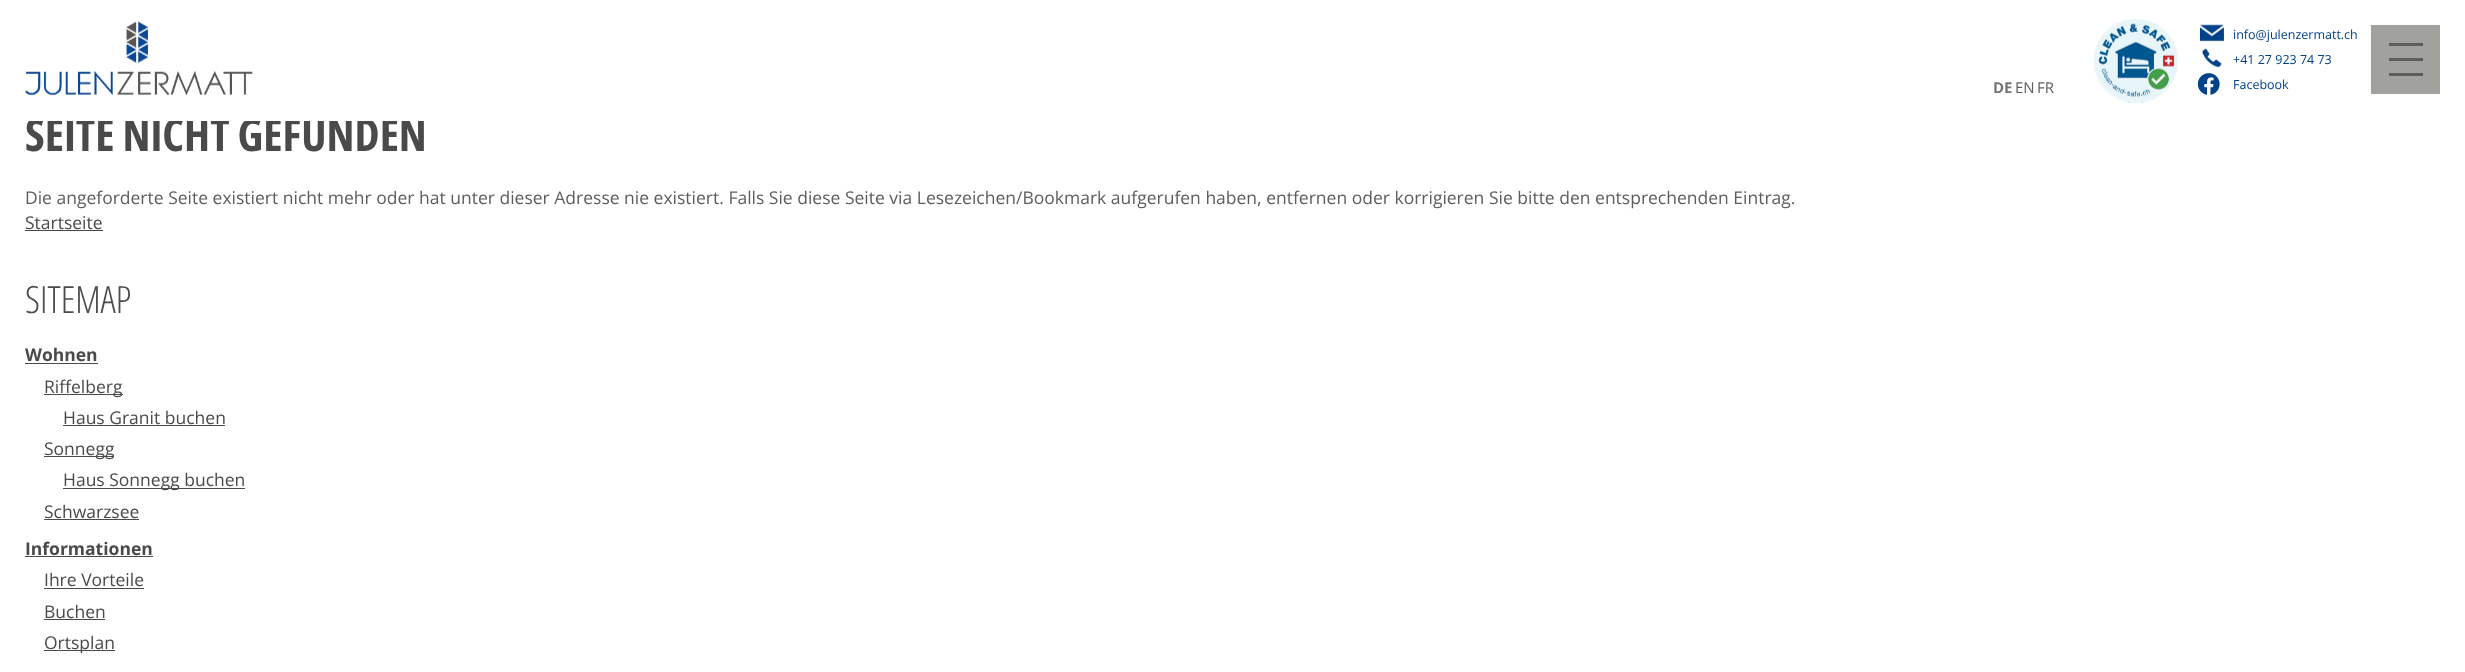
<!DOCTYPE html>
<meta charset="utf-8">
<style>body { margin: 0 } canvas { display: block }</style>
<canvas id="canvas" width="2465" height="672"></canvas>
<img id="img1" src="img_01.png" hidden>
<img id="img2" src="img_02.png" hidden>
<img id="img3" src="img_03.png" hidden>
<img id="img4" src="img_04.png" hidden>
<img id="img5" src="img_05.png" hidden>
<script>
window.onload = function () {
	const canvas = document.getElementById("canvas");
	const ctx = canvas.getContext("2d");
	ctx.miterLimit = 4;
	ctx.fontKerning = "normal";
	function txt(s, x, y) {
		ctx.fillText(s, x, y);
	}
	function fill(x, y, w, h) {
		ctx.fillRect(x, y, w, h);
	}
	function img(id, x, y, w, h) {
		ctx.drawImage(document.getElementById(id), x, y, w, h);
	}

	ctx.fillStyle = "#FFFFFF";
	fill(0, 0, 2465, 672);
	img("img1", 25, 21, 228, 75);
	img("img2", 2093, 19, 85, 84);
	img("img3", 2200, 24, 24, 18);
	img("img4", 2202, 48, 20, 20);
	img("img5", 2197, 73, 23, 22);
	ctx.fillStyle = "#A1A19E";
	fill(2371, 25, 69, 69);
	ctx.fillStyle = "#5D5D5D";
	fill(2389, 43, 34, 3);
	fill(2389, 58, 34, 3);
	fill(2389, 73, 34, 3);
	ctx.fillStyle = "#4A4A4A";
	fill(25, 230, 78, 1);
	fill(25, 363, 73, 1);
	fill(44, 394, 79, 1);
	fill(63, 425, 162, 1);
	fill(44, 456, 70, 1);
	fill(63, 488, 182, 1);
	fill(44, 519, 95, 1);
	fill(25, 556, 128, 1);
	fill(44, 588, 100, 1);
	fill(44, 619, 61, 1);
	fill(44, 650, 71, 1);
	ctx.font = "bold 15px Open Sans";
	ctx.fillStyle = "#767676";
	txt("DE", 1993, 93);
	ctx.font = "15px Open Sans";
	ctx.fillStyle = "#5D5D5D";
	txt("EN", 2015, 93);
	txt("FR", 2037, 93);
	ctx.font = "12.5px Open Sans";
	ctx.fillStyle = "#004188";
	txt("info@julenzermatt.ch", 2233, 39);
	txt("+41 27 923 74 73", 2233, 64);
	txt("Facebook", 2233, 89);
	ctx.font = "bold 45px Open Sans Condensed";
	ctx.fillStyle = "#4A4A4A";
	txt("SEITE NICHT GEFUNDEN", 25, 151);
	ctx.fillStyle = "#FFFFFF";
	fill(29, 118, 395, 3);
	ctx.font = "17.5px Open Sans";
	ctx.fillStyle = "#5D5D5D";
	txt("Die angeforderte Seite existiert nicht mehr oder hat unter dieser Adresse nie existiert. Falls Sie diese Seite via Lesezeichen/Bookmark aufgerufen haben, entfernen oder korrigieren Sie bitte den entsprechenden Eintrag.", 25, 204);
	ctx.fillStyle = "#4A4A4A";
	txt("Startseite", 25, 229);
	ctx.font = "300 37.5px Open Sans Condensed";
	txt("SITEMAP", 25, 313);
	ctx.font = "bold 17.5px Open Sans";
	txt("Wohnen", 25, 361);
	ctx.font = "17.5px Open Sans";
	txt("Riffelberg", 44, 393);
	txt("Haus Granit buchen", 63, 424);
	txt("Sonnegg", 44, 455);
	txt("Haus Sonnegg buchen", 63, 486);
	txt("Schwarzsee", 44, 518);
	ctx.font = "bold 17.5px Open Sans";
	txt("Informationen", 25, 555);
	ctx.font = "17.5px Open Sans";
	txt("Ihre Vorteile", 44, 586);
	txt("Buchen", 44, 618);
	txt("Ortsplan", 44, 649);
};
</script>
